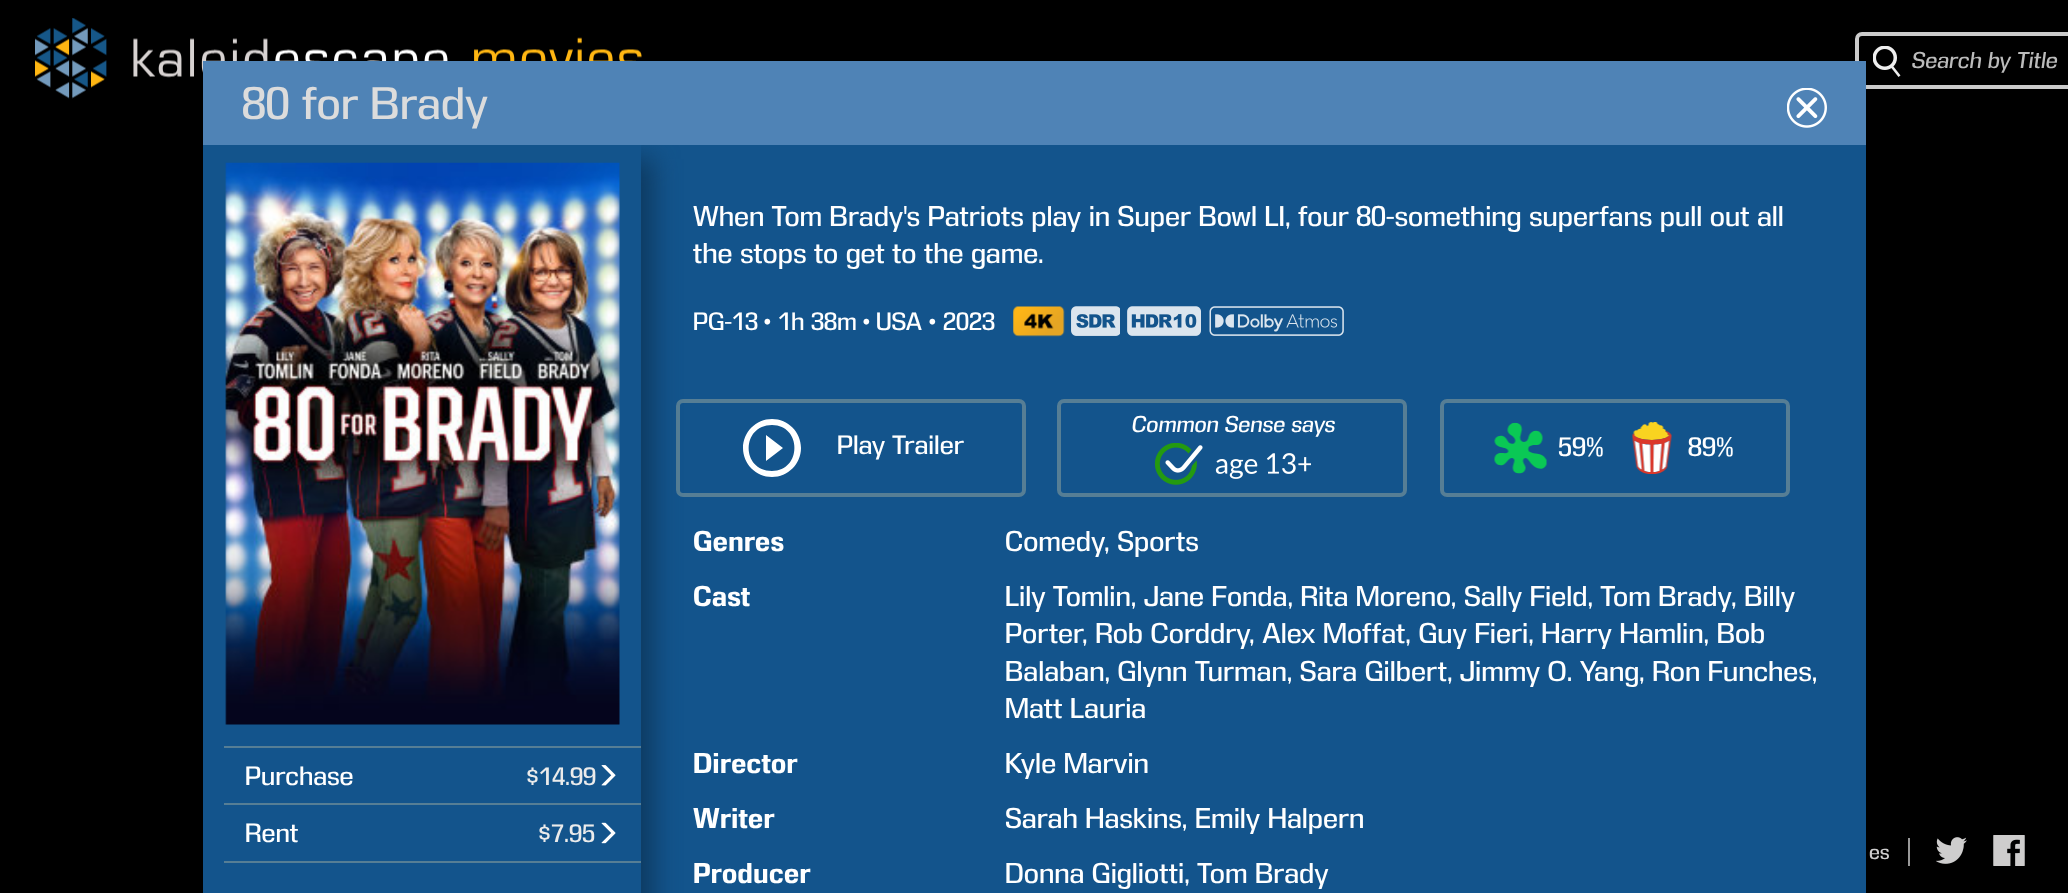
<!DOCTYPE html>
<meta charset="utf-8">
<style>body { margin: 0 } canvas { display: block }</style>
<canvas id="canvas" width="2068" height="893"></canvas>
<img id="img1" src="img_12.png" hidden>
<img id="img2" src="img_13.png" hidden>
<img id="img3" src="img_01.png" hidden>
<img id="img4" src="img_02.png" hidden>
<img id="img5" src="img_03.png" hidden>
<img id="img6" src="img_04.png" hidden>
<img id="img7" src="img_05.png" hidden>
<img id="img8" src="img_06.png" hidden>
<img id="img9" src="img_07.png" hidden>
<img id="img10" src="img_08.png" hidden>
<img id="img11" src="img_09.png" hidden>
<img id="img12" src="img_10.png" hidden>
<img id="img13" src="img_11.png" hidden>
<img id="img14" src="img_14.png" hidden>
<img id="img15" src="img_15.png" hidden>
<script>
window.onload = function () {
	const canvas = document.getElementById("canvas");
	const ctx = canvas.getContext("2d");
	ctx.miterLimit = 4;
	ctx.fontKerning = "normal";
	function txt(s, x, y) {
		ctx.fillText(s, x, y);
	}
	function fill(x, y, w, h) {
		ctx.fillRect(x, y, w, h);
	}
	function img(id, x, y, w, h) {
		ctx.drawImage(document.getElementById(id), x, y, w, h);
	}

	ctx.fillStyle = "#000000";
	fill(0, 0, 2068, 893);
	ctx.fillStyle = "#13548C";
	fill(641, 145, 1225, 748);
	ctx.beginPath();
	ctx.roundRect(678, 401, 346, 94, 5);
	ctx.strokeStyle = "#567E95";
	ctx.lineWidth = 4;
	ctx.stroke();
	ctx.fillStyle = "#0D395F";
	ctx.filter = "blur(13px)";
	ctx.beginPath();
	ctx.rect(243, 159, 410, 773);
	ctx.fill();
	ctx.filter = "none";
	img("img1", 35, 18, 607, 81);
	img("img2", 1873, 46, 28, 31);
	ctx.beginPath();
	ctx.roundRect(1857, 34, 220, 53, 5);
	ctx.strokeStyle = "#CBCBCB";
	ctx.stroke();
	ctx.fillStyle = "#4F83B6";
	fill(203, 61, 1663, 84);
	img("img3", 1787, 88, 40, 40);
	ctx.fillStyle = "#13548C";
	fill(203, 145, 438, 748);
	img("img4", 225, 162, 395, 563);
	ctx.fillStyle = "#567E95";
	fill(224, 746, 417, 2);
	img("img5", 601, 765, 15, 21);
	fill(224, 803, 417, 2);
	img("img6", 601, 822, 15, 22);
	fill(224, 861, 417, 2);
	img("img7", 1013, 306, 52, 31);
	img("img8", 1071, 306, 49, 30);
	img("img9", 1127, 306, 74, 30);
	img("img10", 1209, 306, 135, 30);
	ctx.beginPath();
	ctx.roundRect(1059, 401, 346, 94, 5);
	ctx.strokeStyle = "#567E95";
	ctx.stroke();
	img("img11", 1154, 443, 157, 42);
	ctx.fillStyle = "#FFFFFF";
	ctx.beginPath();
	ctx.moveTo(766, 461);
	ctx.lineTo(783, 448);
	ctx.lineTo(766, 435);
	ctx.closePath();
	ctx.moveTo(772, 419);
	ctx.bezierCurveTo(756, 419, 743, 432, 743, 448);
	ctx.bezierCurveTo(743, 464, 756, 477, 772, 477);
	ctx.bezierCurveTo(788, 477, 801, 464, 801, 448);
	ctx.bezierCurveTo(801, 432, 788, 419, 772, 419);
	ctx.closePath();
	ctx.moveTo(772, 471);
	ctx.bezierCurveTo(741, 471, 741, 425, 772, 425);
	ctx.bezierCurveTo(802, 425, 802, 471, 772, 471);
	ctx.closePath();
	ctx.fill();
	ctx.beginPath();
	ctx.roundRect(1442, 401, 346, 94, 5);
	ctx.stroke();
	img("img12", 1494, 422, 53, 52);
	img("img13", 1632, 422, 40, 52);
	ctx.fillStyle = "#999999";
	fill(1908, 838, 2, 28);
	img("img14", 1936, 837, 31, 27);
	img("img15", 1993, 835, 32, 31);
	ctx.font = "42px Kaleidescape";
	ctx.fillStyle = "#DCDCDC";
	txt("80 for Brady", 242, 119);
	ctx.font = "24.5px Kaleidescape";
	ctx.fillStyle = "#FFFFFF";
	txt("Purchase", 245, 785);
	ctx.font = "23px Kaleidescape";
	ctx.fillStyle = "#EBEBEB";
	txt("$14.99", 526, 785);
	ctx.font = "24.5px Kaleidescape";
	ctx.fillStyle = "#FFFFFF";
	txt("Rent", 245, 842);
	ctx.font = "23px Kaleidescape";
	ctx.fillStyle = "#EBEBEB";
	txt("$7.95", 538, 842);
	ctx.font = "26.25px Kaleidescape";
	ctx.fillStyle = "#FFFFFF";
	txt("When Tom Brady's Patriots play in Super Bowl LI, four 80-something superfans pull out all", 693, 226);
	txt("the stops to get to the game.", 693, 263);
	ctx.font = "23px Kaleidescape";
	txt("PG-13", 693, 330);
	txt("•", 764, 330);
	txt("1h 38m", 778, 330);
	txt("•", 863, 330);
	txt("USA", 876, 330);
	txt("•", 929, 330);
	txt("2023", 943, 330);
	ctx.font = "italic 21px Kaleidescape";
	txt("Common Sense says", 1131, 432);
	ctx.font = "24.5px Kaleidescape";
	txt("Play Trailer", 837, 454);
	txt("59%", 1558, 456);
	txt("89%", 1688, 456);
	ctx.font = "bold 26.25px Kaleidescape";
	txt("Genres", 693, 551);
	ctx.font = "26.25px Kaleidescape";
	txt("Comedy", 1005, 551);
	txt(", Sports", 1104, 551);
	ctx.font = "bold 26.25px Kaleidescape";
	txt("Cast", 693, 606);
	ctx.font = "26.25px Kaleidescape";
	txt("Lily Tomlin, Jane Fonda, Rita Moreno, Sally Field, Tom Brady", 1005, 606);
	txt(", Billy", 1731, 606);
	txt("Porter", 1005, 643);
	txt(", Rob Corddry", 1082, 643);
	txt(", Alex Moffat, Guy Fieri, Harry Hamlin, Bob", 1249, 643);
	txt("Balaban, Glynn Turman, Sara Gilbert, Jimmy O. Yang, Ron Funches,", 1005, 681);
	txt("Matt Lauria", 1005, 718);
	ctx.font = "bold 26.25px Kaleidescape";
	txt("Director", 693, 773);
	ctx.font = "26.25px Kaleidescape";
	txt("Kyle Marvin", 1005, 773);
	ctx.font = "bold 26.25px Kaleidescape";
	txt("Writer", 693, 828);
	ctx.font = "26.25px Kaleidescape";
	txt("Sarah Haskins, Emily Halpern", 1005, 828);
	ctx.font = "bold 26.25px Kaleidescape";
	txt("Producer", 693, 883);
	ctx.font = "26.25px Kaleidescape";
	txt("Donna Gigliotti, Tom Brady", 1005, 883);
	ctx.font = "italic 21px Kaleidescape";
	ctx.fillStyle = "#BBBBBB";
	txt("Search by Title", 1911, 68);
	ctx.font = "19px Kaleidescape";
	ctx.fillStyle = "#CECDCD";
	txt("es", 1869, 859);
};
</script>
